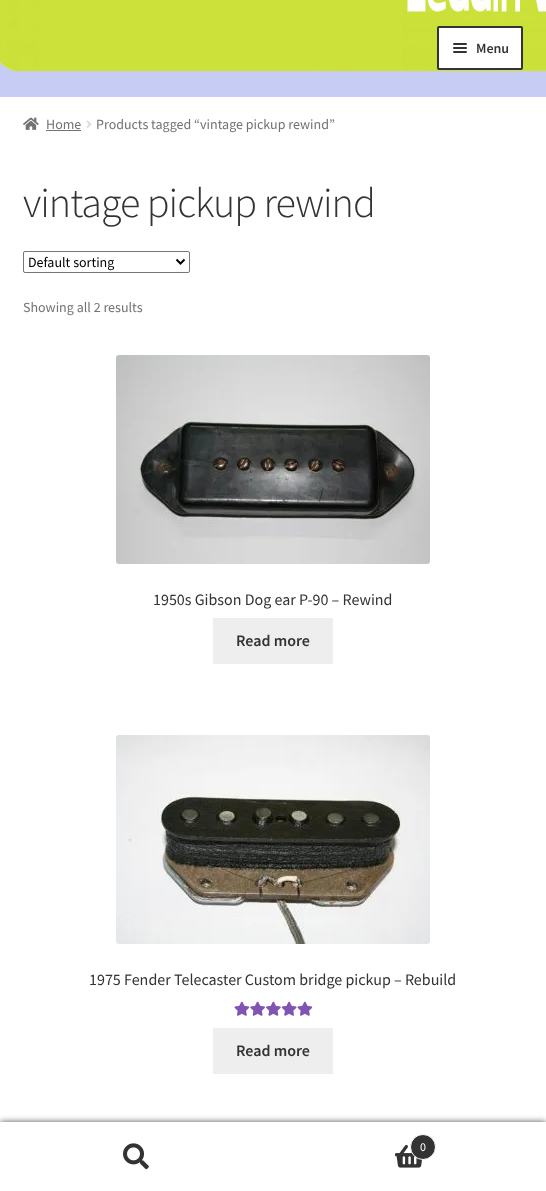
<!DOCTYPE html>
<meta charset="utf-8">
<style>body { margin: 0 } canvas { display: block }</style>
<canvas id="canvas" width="546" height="1191"></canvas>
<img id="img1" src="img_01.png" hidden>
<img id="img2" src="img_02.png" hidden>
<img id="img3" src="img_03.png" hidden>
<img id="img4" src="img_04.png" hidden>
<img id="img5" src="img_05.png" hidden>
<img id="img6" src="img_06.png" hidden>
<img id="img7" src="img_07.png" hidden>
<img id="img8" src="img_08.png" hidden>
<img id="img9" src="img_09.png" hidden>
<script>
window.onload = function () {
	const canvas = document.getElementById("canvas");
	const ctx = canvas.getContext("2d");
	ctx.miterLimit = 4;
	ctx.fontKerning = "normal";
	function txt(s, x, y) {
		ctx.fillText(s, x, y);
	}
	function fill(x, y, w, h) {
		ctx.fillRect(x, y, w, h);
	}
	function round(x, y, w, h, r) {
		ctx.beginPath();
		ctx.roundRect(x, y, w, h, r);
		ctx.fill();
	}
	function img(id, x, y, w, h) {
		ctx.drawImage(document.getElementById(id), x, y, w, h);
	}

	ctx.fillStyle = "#FFFFFF";
	fill(0, 0, 546, 1191);
	img("img1", 0, 0, 546, 97);
	ctx.beginPath();
	ctx.roundRect(438, 27, 84, 42, 1);
	ctx.fill();
	ctx.strokeStyle = "#333333";
	ctx.lineWidth = 2;
	ctx.stroke();
	ctx.fillStyle = "#333333";
	round(453, 43, 14, 2, 1);
	round(453, 47, 14, 2, 1);
	round(453, 51, 14, 2, 1);
	img("img2", 23, 117, 16, 13);
	ctx.fillStyle = "#727272";
	fill(46, 130, 35, 1);
	img("img3", 86, 120, 6, 8);
	ctx.beginPath();
	ctx.roundRect(23.5, 251.5, 166, 21, 1.5);
	ctx.strokeStyle = "#767676";
	ctx.lineWidth = 1;
	ctx.stroke();
	ctx.beginPath();
	ctx.moveTo(176.5, 259.5);
	ctx.lineTo(180.5, 263.5);
	ctx.lineTo(184.5, 259.5);
	ctx.strokeStyle = "#000000";
	ctx.lineWidth = 2;
	ctx.stroke();
	img("img4", 116, 355, 314, 209);
	ctx.fillStyle = "#EEEEEE";
	fill(213, 618, 120, 46);
	img("img5", 116, 735, 314, 209);
	img("img6", 234, 1001, 78, 15);
	img("img7", 234, 1001, 78, 15);
	fill(213, 1028, 120, 46);
	ctx.fillStyle = "rgba(0, 0, 0, 0.7)";
	ctx.filter = "blur(3px)";
	ctx.beginPath();
	ctx.rect(0, 1122, 546, 69);
	ctx.fill();
	ctx.filter = "none";
	ctx.fillStyle = "#FFFFFF";
	fill(0, 1122, 546, 69);
	img("img8", 123, 1143, 26, 27);
	img("img9", 395, 1145, 28, 23);
	ctx.fillStyle = "#333333";
	ctx.beginPath();
	ctx.arc(423, 1147, 12.5, 0, Math.PI * 2);
	ctx.fill();
	ctx.strokeStyle = "#FFFFFF";
	ctx.lineWidth = 1;
	ctx.stroke();
	ctx.font = "600 14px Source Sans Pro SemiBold";
	txt("Menu", 476, 53);
	ctx.font = "14px Source Sans Pro";
	ctx.fillStyle = "#727272";
	txt("Home", 46, 129);
	txt("Products tagged “vintage pickup rewind”", 96, 129);
	ctx.letterSpacing = "-1px";
	ctx.font = "300 42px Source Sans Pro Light";
	ctx.fillStyle = "#333333";
	txt("vintage pickup rewind", 23, 217);
	ctx.letterSpacing = "0px";
	ctx.font = "14px Source Sans Pro";
	ctx.fillStyle = "#000000";
	txt("Default sorting", 28, 267);
	ctx.fillStyle = "#727272";
	txt("Showing all 2 results", 23, 312);
	ctx.font = "16px Source Sans Pro";
	ctx.fillStyle = "#333333";
	txt("1950s Gibson Dog ear P-90 – Rewind", 153, 605);
	ctx.font = "600 16px Source Sans Pro SemiBold";
	txt("Read more", 236, 646);
	ctx.font = "16px Source Sans Pro";
	txt("1975 Fender Telecaster Custom bridge pickup – Rebuild", 89, 985);
	ctx.font = "600 16px Source Sans Pro SemiBold";
	txt("Read more", 236, 1056);
	ctx.font = "12px Source Sans Pro";
	ctx.fillStyle = "#FFFFFF";
	txt("0", 420, 1151);
};
</script>
